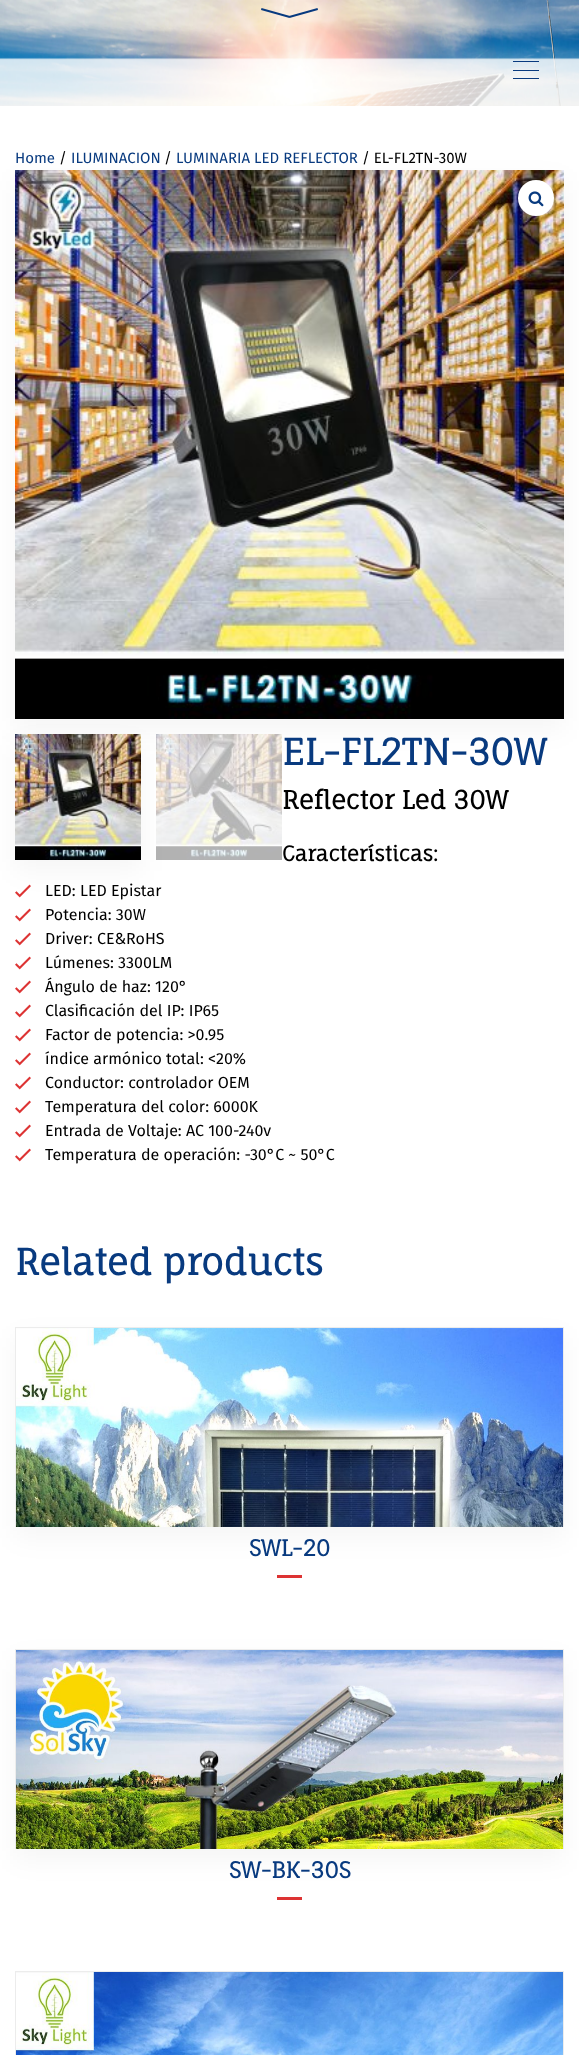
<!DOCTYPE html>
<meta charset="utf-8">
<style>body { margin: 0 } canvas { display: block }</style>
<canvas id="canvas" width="579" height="2055"></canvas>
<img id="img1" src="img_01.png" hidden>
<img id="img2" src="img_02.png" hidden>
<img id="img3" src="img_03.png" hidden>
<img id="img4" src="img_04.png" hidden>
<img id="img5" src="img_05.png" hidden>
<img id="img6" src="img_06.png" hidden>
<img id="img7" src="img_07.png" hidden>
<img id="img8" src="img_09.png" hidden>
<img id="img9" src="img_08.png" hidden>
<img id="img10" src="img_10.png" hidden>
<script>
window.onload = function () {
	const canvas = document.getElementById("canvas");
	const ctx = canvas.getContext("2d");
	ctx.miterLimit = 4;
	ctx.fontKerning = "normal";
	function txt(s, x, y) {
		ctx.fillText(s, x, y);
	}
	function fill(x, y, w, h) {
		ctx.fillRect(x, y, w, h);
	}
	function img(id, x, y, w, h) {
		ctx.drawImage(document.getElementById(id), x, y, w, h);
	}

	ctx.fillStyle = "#FFFFFF";
	fill(0, 0, 579, 2055);
	img("img1", 0, 0, 579, 106);
	ctx.fillStyle = "#083A7F";
	ctx.beginPath();
	ctx.moveTo(261.5, 8);
	ctx.lineTo(290, 16);
	ctx.lineTo(289.5, 18);
	ctx.lineTo(261, 10);
	ctx.closePath();
	ctx.fill();
	ctx.beginPath();
	ctx.moveTo(289, 16);
	ctx.lineTo(317.5, 8);
	ctx.lineTo(318, 10);
	ctx.lineTo(289.5, 18);
	ctx.closePath();
	ctx.fill();
	fill(513, 61, 26, 1);
	fill(513, 70, 26, 1);
	fill(513, 78, 26, 1);
	ctx.fillStyle = "rgba(0, 0, 0, 0.04)";
	ctx.filter = "blur(13.5px)";
	ctx.beginPath();
	ctx.rect(15, 181, 549, 549);
	ctx.fill();
	ctx.filter = "none";
	img("img2", 15, 170, 549, 549);
	ctx.fillStyle = "#FFFFFF";
	ctx.beginPath();
	ctx.arc(536, 198, 18, 0, Math.PI * 2);
	ctx.fill();
	img("img3", 528, 191, 16, 16);
	ctx.fillStyle = "rgba(0, 0, 0, 0.04)";
	ctx.filter = "blur(13.5px)";
	ctx.beginPath();
	ctx.rect(15, 745, 126, 126);
	ctx.fill();
	ctx.filter = "none";
	img("img4", 15, 734, 126, 126);
	img("img5", 156, 734, 126, 126);
	img("img6", 15, 884, 16, 14);
	img("img7", 15, 908, 16, 14);
	img("img7", 15, 932, 16, 14);
	img("img7", 15, 956, 16, 14);
	img("img7", 15, 980, 16, 14);
	img("img7", 15, 1004, 16, 14);
	img("img7", 15, 1028, 16, 14);
	img("img7", 15, 1052, 16, 14);
	img("img7", 15, 1076, 16, 14);
	img("img7", 15, 1100, 16, 14);
	img("img7", 15, 1124, 16, 14);
	img("img7", 15, 1148, 16, 14);
	ctx.filter = "blur(13.5px)";
	ctx.beginPath();
	ctx.rect(15, 1338, 549, 200);
	ctx.fill();
	ctx.filter = "none";
	ctx.fillStyle = "#DD3333";
	fill(277, 1575, 25, 3);
	ctx.fillStyle = "rgba(0, 0, 0, 0.04)";
	ctx.filter = "blur(13.5px)";
	ctx.beginPath();
	ctx.rect(15, 1660, 549, 200);
	ctx.fill();
	ctx.filter = "none";
	ctx.fillStyle = "#DD3333";
	fill(277, 1897, 25, 3);
	ctx.font = "15px Fira Sans";
	ctx.fillStyle = "#083A7F";
	txt("Home", 15, 163);
	ctx.fillStyle = "#000000";
	txt("/", 59, 163);
	ctx.fillStyle = "#083A7F";
	txt("ILUMINACION", 71, 163);
	ctx.fillStyle = "#000000";
	txt("/", 164, 163);
	ctx.fillStyle = "#083A7F";
	txt("LUMINARIA LED REFLECTOR", 176, 163);
	ctx.fillStyle = "#000000";
	txt("/ EL-FL2TN-30W", 362, 163);
	ctx.font = "bold 36px Fauna One";
	ctx.fillStyle = "#083A7F";
	txt("EL-FL2TN-30W", 282, 765);
	ctx.font = "bold 25.1px Fauna One";
	ctx.fillStyle = "#000000";
	txt("Reflector Led 30W", 282, 809);
	ctx.font = "bold 20.5px Fauna One";
	txt("Características:", 282, 861);
	ctx.font = "16px Fira Sans";
	txt("LED: LED Epistar", 45, 896);
	txt("Potencia: 30W", 45, 920);
	txt("Driver: CE&RoHS", 45, 944);
	txt("Lúmenes: 3300LM", 45, 968);
	txt("Ángulo de haz: 120°", 45, 992);
	txt("Clasificación del IP: IP65", 45, 1016);
	txt("Factor de potencia: >0.95", 45, 1040);
	txt("índice armónico total: <20%", 45, 1064);
	txt("Conductor: controlador OEM", 45, 1088);
	txt("Temperatura del color: 6000K", 45, 1112);
	txt("Entrada de Voltaje: AC 100-240v", 45, 1136);
	txt("Temperatura de operación: -30°C ~ 50°C", 45, 1160);
	ctx.font = "bold 36px Fauna One";
	ctx.fillStyle = "#083A7F";
	txt("Related products", 15, 1275);
	ctx.font = "bold 22px Fauna One";
	txt("SWL-20", 249, 1556);
	txt("SW-BK-30S", 229, 1878);
	ctx.save();
	ctx.beginPath();
	ctx.rect(15, 1327, 549, 200);
	ctx.clip();
	ctx.strokeStyle = "#ECECEC";
	ctx.strokeRect(15.5, 1327.5, 548, 548);
	ctx.restore();
	ctx.save();
	ctx.beginPath();
	ctx.rect(15, 1649, 549, 200);
	ctx.clip();
	ctx.strokeStyle = "#ECECEC";
	ctx.strokeRect(15.5, 1649.5, 548, 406);
	ctx.restore();
	img("img8", 16, 1650, 547, 199);
	img("img9", 16, 1328, 547, 199);
	ctx.strokeStyle = "#ECECEC";
	ctx.strokeRect(15.5, 1971.5, 548, 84);
	img("img10", 16, 1972, 547, 83);
};
</script>
